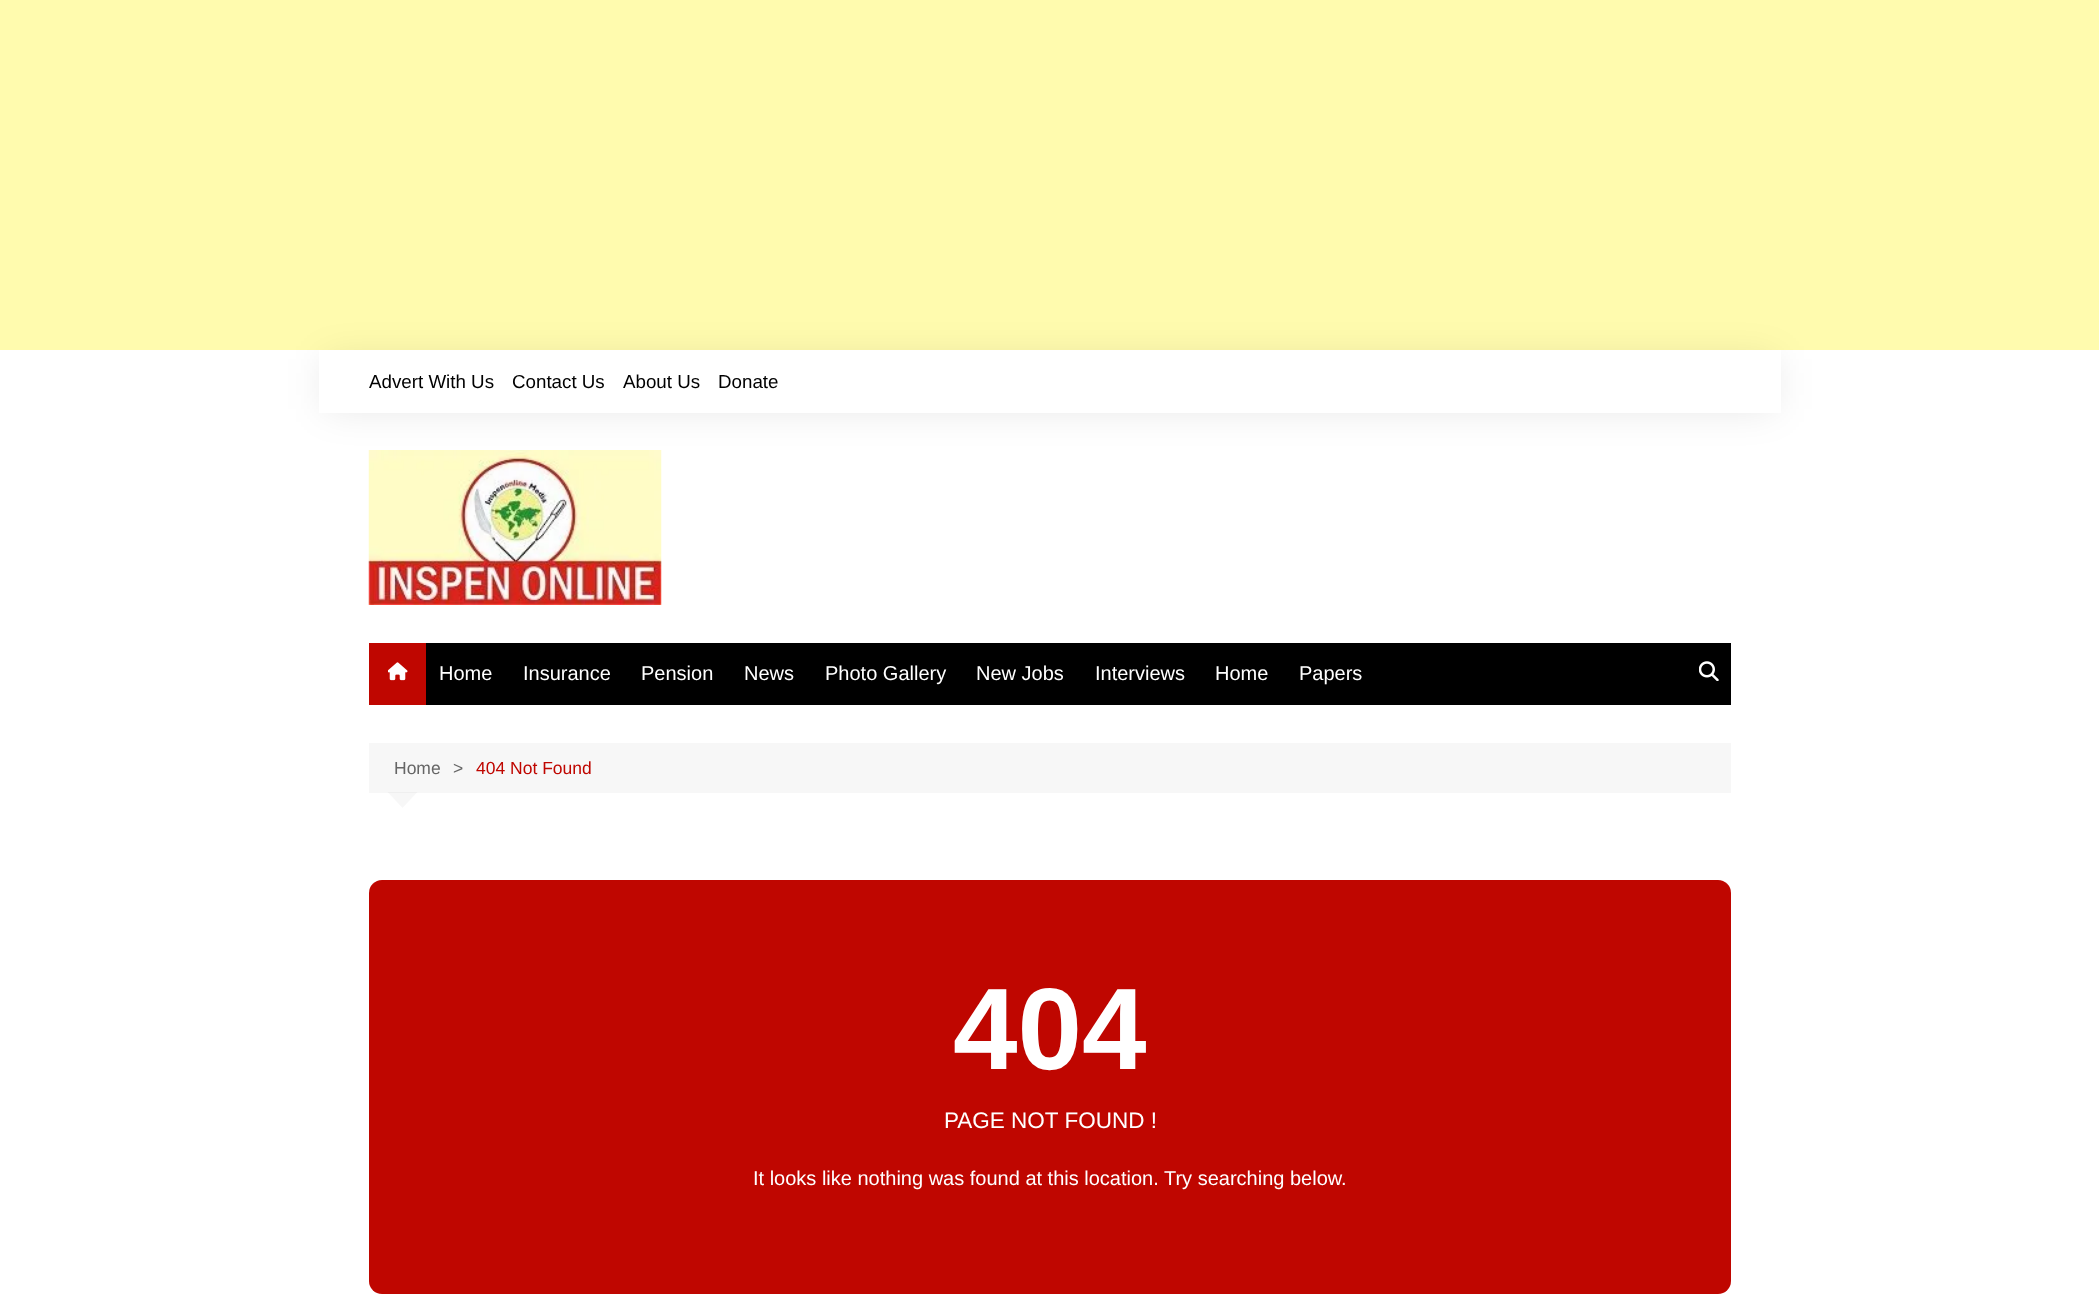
<!DOCTYPE html>
<meta charset="utf-8">
<style>body { margin: 0 } canvas { display: block }</style>
<canvas id="canvas" width="2099" height="1313"></canvas>
<img id="img1" src="img_01.png" hidden>
<img id="img2" src="img_02.png" hidden>
<img id="img3" src="img_03.png" hidden>
<script>
window.onload = function () {
	const canvas = document.getElementById("canvas");
	const ctx = canvas.getContext("2d");
	ctx.miterLimit = 4;
	ctx.fontKerning = "normal";
	function txt(s, x, y) {
		ctx.fillText(s, x, y);
	}
	function fill(x, y, w, h) {
		ctx.fillRect(x, y, w, h);
	}
	function round(x, y, w, h, r) {
		ctx.beginPath();
		ctx.roundRect(x, y, w, h, r);
		ctx.fill();
	}
	function img(id, x, y, w, h) {
		ctx.drawImage(document.getElementById(id), x, y, w, h);
	}

	ctx.fillStyle = "#FFFFFF";
	fill(0, 0, 2099, 1313);
	ctx.fillStyle = "#FFFBAE";
	fill(0, 0, 2099, 350);
	ctx.fillStyle = "rgba(0, 0, 0, 0.1)";
	ctx.filter = "blur(19px)";
	ctx.beginPath();
	ctx.rect(325, 359, 1450, 50);
	ctx.fill();
	ctx.filter = "none";
	ctx.fillStyle = "#FFFFFF";
	fill(319, 350, 1462, 63);
	img("img1", 368, 450, 294, 155);
	ctx.fillStyle = "#000000";
	fill(426, 643, 1305, 62);
	ctx.fillStyle = "#BF0600";
	fill(369, 643, 57, 62);
	img("img2", 388, 662, 20, 19);
	img("img3", 1699, 661, 20, 20);
	ctx.fillStyle = "#F7F7F7";
	fill(369, 743, 1362, 50);
	ctx.fillStyle = "rgba(0, 0, 0, 0.03)";
	ctx.beginPath();
	ctx.moveTo(387.5, 792);
	ctx.lineTo(417.5, 792);
	ctx.lineTo(402.5, 808);
	ctx.closePath();
	ctx.fill();
	ctx.fillStyle = "#BF0600";
	round(369, 880, 1362, 414, 13);
	ctx.font = "18.75px Liberation Sans";
	ctx.fillStyle = "#010101";
	txt("Advert With Us", 369, 388);
	txt("Contact Us", 512, 388);
	txt("About Us", 623, 388);
	txt("Donate", 718, 388);
	ctx.font = "20px Liberation Sans";
	ctx.fillStyle = "#FFFFFF";
	txt("Home", 439, 680);
	txt("Insurance", 523, 680);
	txt("Pension", 641, 680);
	txt("News", 744, 680);
	txt("Photo Gallery", 825, 680);
	txt("New Jobs", 976, 680);
	txt("Interviews", 1095, 680);
	txt("Home", 1215, 680);
	txt("Papers", 1299, 680);
	ctx.font = "17.5px Liberation Sans";
	ctx.fillStyle = "#666666";
	txt("Home", 394, 774);
	txt(">", 453, 774);
	ctx.fillStyle = "#BF0600";
	txt("404 Not Found", 476, 774);
	ctx.font = "bold 116px Liberation Sans";
	ctx.fillStyle = "#FFFFFF";
	txt("404", 953, 1069);
	ctx.font = "22.5px Liberation Sans";
	txt("PAGE NOT FOUND !", 944, 1128);
	ctx.font = "20px Liberation Sans";
	txt("It looks like nothing was found at this location. Try searching below.", 753, 1185);
};
</script>
